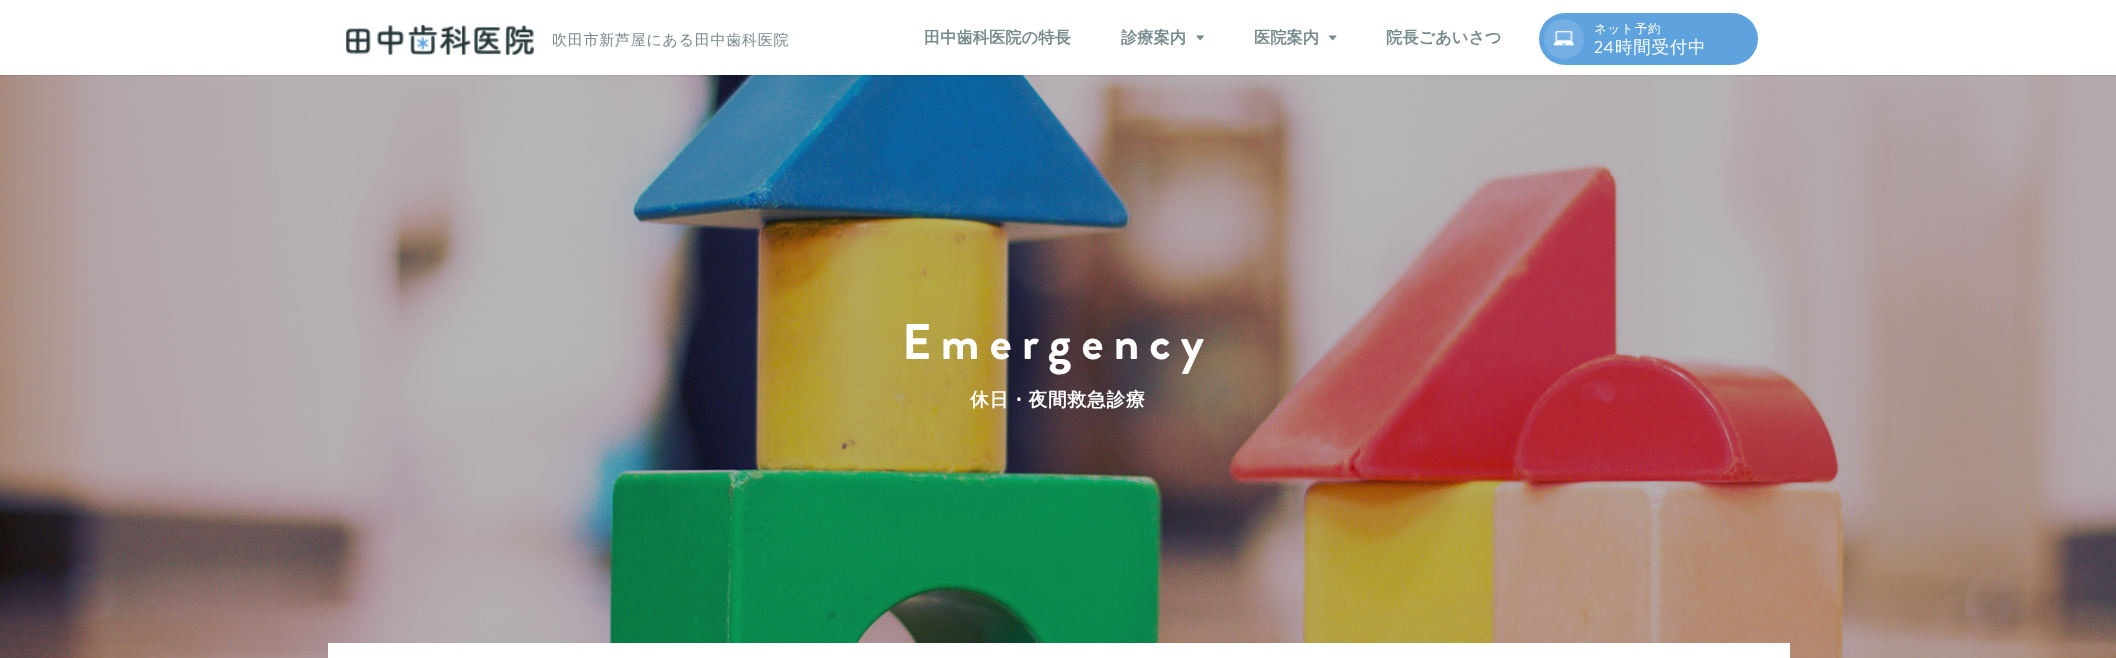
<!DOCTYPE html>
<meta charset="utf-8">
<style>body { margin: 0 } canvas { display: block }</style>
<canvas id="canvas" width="2116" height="658"></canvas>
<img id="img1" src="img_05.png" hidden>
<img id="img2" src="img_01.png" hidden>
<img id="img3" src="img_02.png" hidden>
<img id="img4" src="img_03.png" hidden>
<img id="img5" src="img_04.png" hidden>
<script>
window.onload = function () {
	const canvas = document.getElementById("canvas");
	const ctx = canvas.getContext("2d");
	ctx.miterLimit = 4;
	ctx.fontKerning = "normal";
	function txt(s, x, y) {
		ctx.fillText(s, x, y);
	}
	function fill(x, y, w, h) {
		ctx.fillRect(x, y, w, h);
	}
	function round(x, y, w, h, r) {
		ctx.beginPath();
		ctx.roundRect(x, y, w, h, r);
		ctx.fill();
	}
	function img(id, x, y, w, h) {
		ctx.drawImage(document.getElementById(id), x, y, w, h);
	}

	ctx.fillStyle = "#FFFFFF";
	fill(0, 0, 2116, 658);
	img("img1", 0, 75, 2116, 583);
	ctx.fillStyle = "rgba(0, 0, 0, 0.2)";
	ctx.filter = "blur(1px)";
	ctx.beginPath();
	ctx.rect(0, 0, 2116, 75);
	ctx.fill();
	ctx.filter = "none";
	ctx.fillStyle = "#FFFFFF";
	fill(0, 0, 2116, 75);
	img("img2", 346, 25, 188, 30);
	img("img3", 1196, 35, 8, 6);
	img("img4", 1328, 35, 9, 6);
	ctx.fillStyle = "#5EA3DE";
	round(1539, 13, 219, 52, 26);
	ctx.fillStyle = "#73AFE2";
	ctx.beginPath();
	ctx.arc(1564, 39, 20, 0, Math.PI * 2);
	ctx.fill();
	img("img5", 1553, 30, 21, 16);
	ctx.fillStyle = "#FFFFFF";
	fill(328, 643, 1462, 15);
	ctx.letterSpacing = "0.75px";
	ctx.font = "500 15px WenQuanYi Zen Hei";
	ctx.fillStyle = "#768A8D";
	txt("吹田市新芦屋にある田中歯科医院", 552, 45);
	ctx.letterSpacing = "0px";
	ctx.font = "bold 16.25px WenQuanYi Zen Hei";
	txt("田中歯科医院の特長", 924, 43);
	txt("診療案内", 1121, 43);
	txt("医院案内", 1254, 43);
	txt("院長ごあいさつ", 1386, 43);
	ctx.letterSpacing = "0.75px";
	ctx.font = "500 12.5px WenQuanYi Zen Hei";
	ctx.fillStyle = "#FFFFFF";
	txt("ネット予約", 1594, 33);
	ctx.font = "17.5px Brandon Grotesque";
	txt("24", 1594, 53);
	ctx.font = "500 17.5px WenQuanYi Zen Hei";
	txt("時間受付中", 1615, 53);
	ctx.letterSpacing = "10px";
	ctx.font = "bold 50px Brandon Grotesque";
	txt("Emergency", 902, 359);
	ctx.letterSpacing = "0.75px";
	ctx.font = "bold 18.75px WenQuanYi Zen Hei";
	txt("休日・夜間救急診療", 970, 406);
};
</script>
